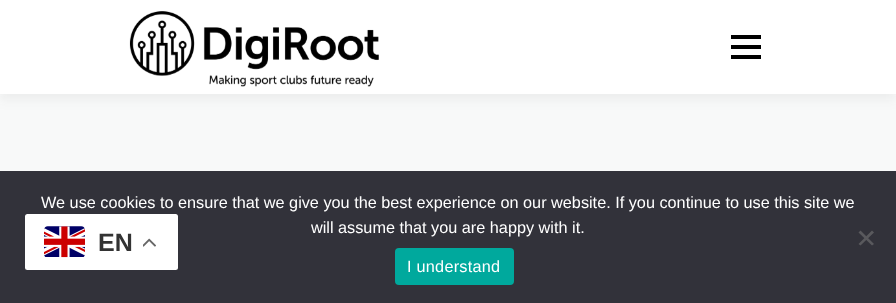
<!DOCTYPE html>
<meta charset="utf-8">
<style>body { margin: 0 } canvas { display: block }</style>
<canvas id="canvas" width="896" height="303"></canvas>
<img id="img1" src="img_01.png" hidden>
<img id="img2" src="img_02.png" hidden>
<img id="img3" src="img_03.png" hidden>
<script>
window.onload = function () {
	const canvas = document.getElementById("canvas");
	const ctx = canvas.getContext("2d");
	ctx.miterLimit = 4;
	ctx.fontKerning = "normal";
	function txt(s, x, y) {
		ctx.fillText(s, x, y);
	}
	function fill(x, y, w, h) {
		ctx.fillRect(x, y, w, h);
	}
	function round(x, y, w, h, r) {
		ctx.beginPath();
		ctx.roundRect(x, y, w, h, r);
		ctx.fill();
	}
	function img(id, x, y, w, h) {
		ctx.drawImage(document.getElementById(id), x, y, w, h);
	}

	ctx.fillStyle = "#F8F9F9";
	fill(0, 0, 896, 303);
	ctx.fillStyle = "rgba(50, 50, 50, 0.06)";
	ctx.filter = "blur(6px)";
	ctx.beginPath();
	ctx.rect(0, 6, 896, 94);
	ctx.fill();
	ctx.filter = "none";
	ctx.fillStyle = "#FFFFFF";
	fill(0, 0, 896, 94);
	img("img1", 129, 11, 250, 76);
	ctx.fillStyle = "#000000";
	fill(731, 45, 30, 4);
	fill(731, 35, 30, 4);
	fill(731, 55, 30, 4);
	ctx.fillStyle = "#32323A";
	fill(0, 171, 896, 132);
	ctx.fillStyle = "#59595D";
	ctx.beginPath();
	ctx.moveTo(872, 230.5);
	ctx.lineTo(874, 232.5);
	ctx.lineTo(860.5, 245.5);
	ctx.lineTo(858.5, 244);
	ctx.closePath();
	ctx.fill();
	ctx.beginPath();
	ctx.moveTo(858.5, 232.5);
	ctx.lineTo(860.5, 230.5);
	ctx.lineTo(874, 244);
	ctx.lineTo(872, 245.5);
	ctx.closePath();
	ctx.fill();
	ctx.fillStyle = "#00A99D";
	round(395, 248, 119, 37, 4);
	ctx.fillStyle = "#FFFFFF";
	round(25, 214, 153, 56, 2.5);
	img("img2", 44, 226, 41, 32);
	img("img3", 143, 238, 13, 9);
	ctx.font = "16.25px Liberation Sans";
	txt("We use cookies to ensure that we give you the best experience on our website. If you continue to use this site we", 41, 208);
	txt("will assume that you are happy with it.", 311, 233);
	ctx.letterSpacing = "0.25px";
	txt("I understand", 407, 272);
	ctx.letterSpacing = "0px";
	ctx.font = "bold 25px Liberation Sans";
	ctx.fillStyle = "#333333";
	txt("EN", 98, 251);
};
</script>
